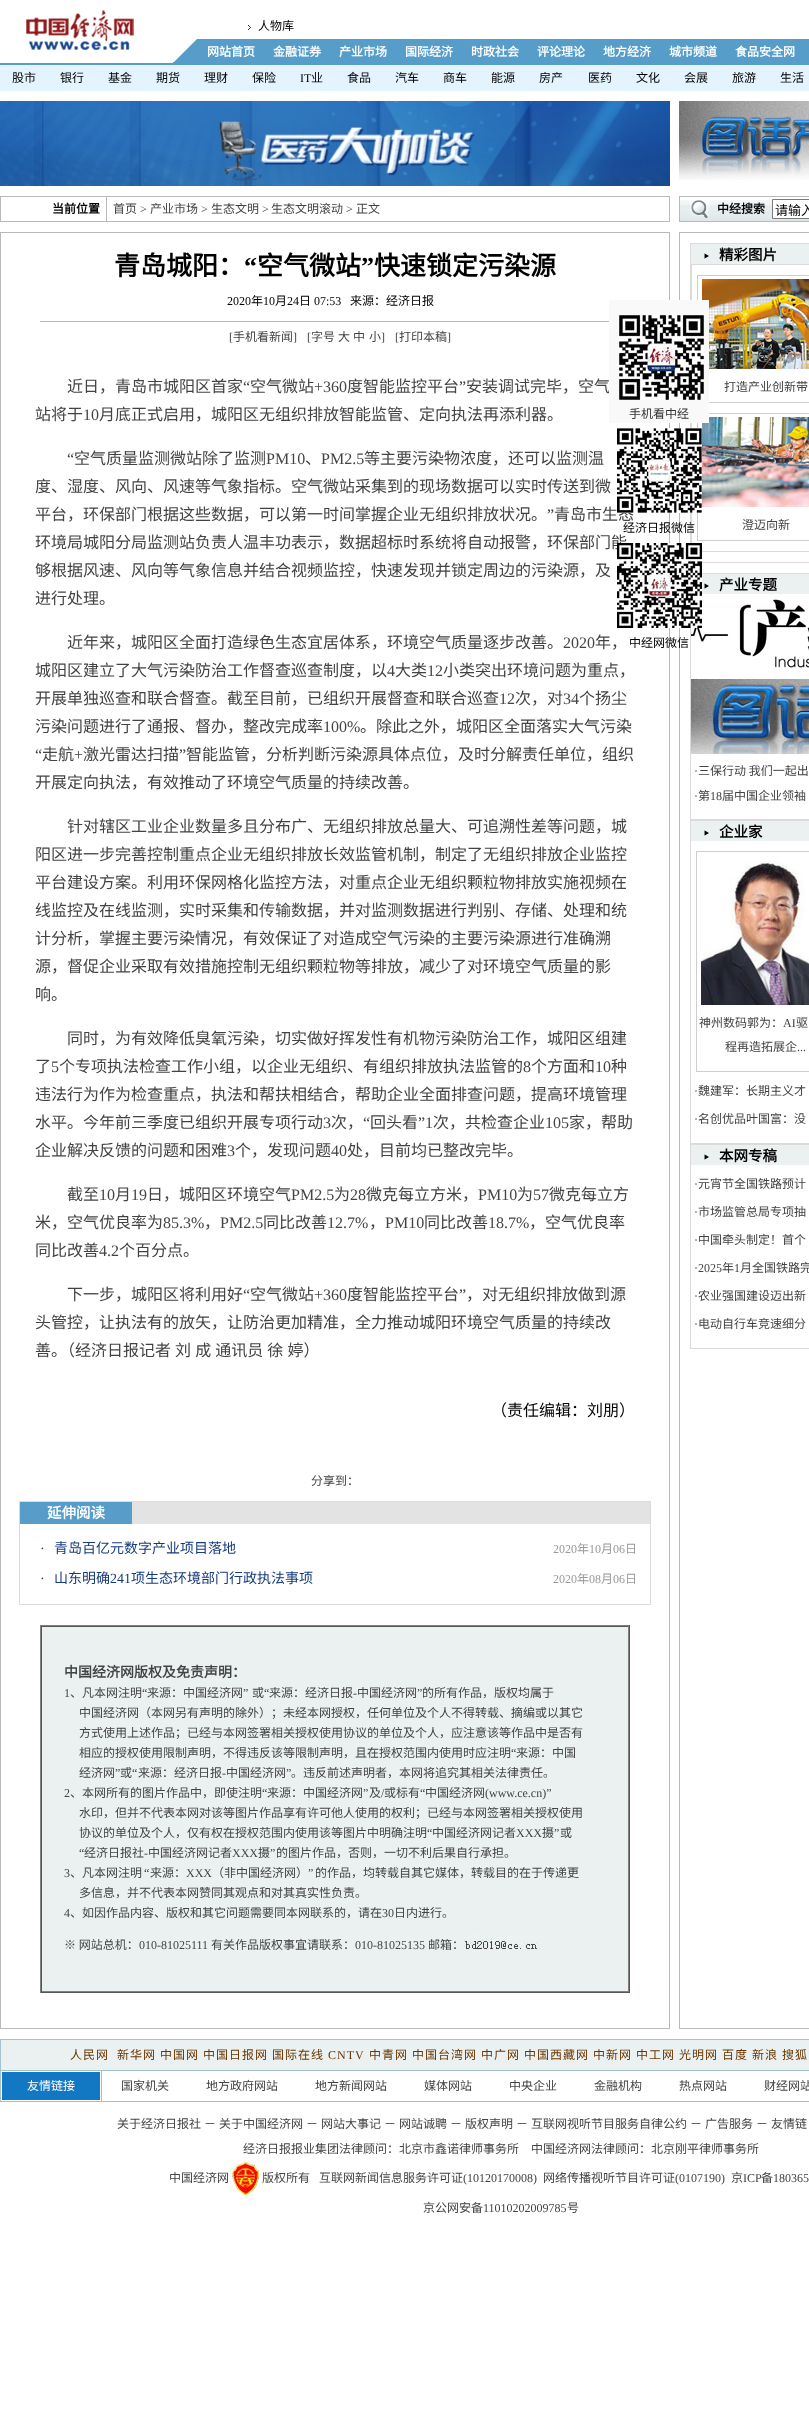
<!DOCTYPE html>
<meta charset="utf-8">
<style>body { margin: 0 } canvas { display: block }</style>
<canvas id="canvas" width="809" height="2416"></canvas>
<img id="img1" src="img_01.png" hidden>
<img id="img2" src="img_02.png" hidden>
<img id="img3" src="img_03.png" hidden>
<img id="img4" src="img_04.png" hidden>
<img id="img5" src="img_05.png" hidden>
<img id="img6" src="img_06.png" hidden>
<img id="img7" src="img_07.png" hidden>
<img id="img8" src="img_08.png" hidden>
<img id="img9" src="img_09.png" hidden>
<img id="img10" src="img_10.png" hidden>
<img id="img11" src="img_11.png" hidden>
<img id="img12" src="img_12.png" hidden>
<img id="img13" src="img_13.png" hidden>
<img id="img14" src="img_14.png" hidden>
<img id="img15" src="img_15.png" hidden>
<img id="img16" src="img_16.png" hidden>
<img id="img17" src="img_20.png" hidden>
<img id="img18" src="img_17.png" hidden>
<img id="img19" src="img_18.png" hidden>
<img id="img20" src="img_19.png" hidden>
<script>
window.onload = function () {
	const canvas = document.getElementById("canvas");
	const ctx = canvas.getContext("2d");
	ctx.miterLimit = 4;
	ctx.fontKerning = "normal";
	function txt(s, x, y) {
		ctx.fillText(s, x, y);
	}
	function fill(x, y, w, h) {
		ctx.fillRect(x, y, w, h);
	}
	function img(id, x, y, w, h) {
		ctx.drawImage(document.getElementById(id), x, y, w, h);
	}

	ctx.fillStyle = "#FFFFFF";
	fill(0, 0, 809, 2416);
	img("img1", 0, 39, 198, 26);
	img("img2", 26, 10, 108, 40);
	img("img3", 248, 25, 3, 5);
	ctx.fillStyle = "#569DC9";
	fill(198, 39, 611, 26);
	ctx.fillStyle = "#E3F4FE";
	fill(0, 65, 809, 26);
	img("img4", 0, 101, 670, 85);
	img("img5", 679, 101, 130, 79);
	ctx.fillStyle = "#B9B9B9";
	fill(0, 196, 670, 26);
	ctx.fillStyle = "#FFFFFF";
	fill(1, 197, 105, 24);
	fill(107, 197, 562, 24);
	ctx.strokeStyle = "#B9B9B9";
	ctx.strokeRect(679.5, 196.5, 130, 25);
	img("img6", 680, 200, 129, 21);
	img("img7", 690, 200, 20, 18);
	ctx.beginPath();
	ctx.rect(772.5, 199.5, 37, 19);
	ctx.fill();
	ctx.strokeStyle = "#7B7B7D";
	ctx.stroke();
	img("img8", 0, 232, 809, 1);
	img("img9", 0, 233, 680, 1795);
	ctx.fillStyle = "#B9B9B9";
	fill(40, 321, 569, 1);
	ctx.strokeStyle = "#DBDBDB";
	ctx.strokeRect(19.5, 1501.5, 631, 103);
	ctx.fillStyle = "#E3E3E3";
	fill(132, 1502, 518, 22);
	ctx.fillStyle = "#569DC9";
	fill(20, 1502, 112, 22);
	ctx.fillStyle = "#EBF1F1";
	fill(42, 1627, 586, 364);
	ctx.fillStyle = "#808080";
	fill(40, 1625, 590, 1);
	ctx.fillStyle = "#555555";
	fill(629, 1625, 1, 368);
	fill(40, 1992, 590, 1);
	ctx.fillStyle = "#808080";
	fill(40, 1625, 1, 368);
	ctx.fillStyle = "#555555";
	fill(41, 1626, 588, 1);
	ctx.fillStyle = "#808080";
	fill(628, 1626, 1, 366);
	fill(41, 1991, 588, 1);
	ctx.fillStyle = "#555555";
	fill(41, 1626, 1, 366);
	img("img10", 464, 1935, 76, 16);
	ctx.strokeRect(690.5, 243.5, 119, 319);
	ctx.fillStyle = "#EBF1F1";
	fill(691, 244, 118, 20);
	img("img11", 704, 253, 5, 6);
	ctx.strokeRect(691.5, 264.5, 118, 287);
	ctx.strokeStyle = "#CECECE";
	ctx.strokeRect(697.5, 275.5, 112, 127);
	img("img12", 702, 279, 107, 90);
	ctx.strokeRect(697.5, 413.5, 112, 127);
	img("img13", 702, 417, 107, 90);
	ctx.strokeStyle = "#DBDBDB";
	ctx.strokeRect(690.5, 573.5, 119, 246);
	fill(702, 574, 107, 20);
	img("img11", 704, 583, 5, 6);
	img("img14", 691, 599, 118, 69);
	img("img15", 691, 679, 118, 75);
	ctx.strokeRect(690.5, 820.5, 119, 323);
	fill(691, 821, 118, 20);
	img("img11", 704, 830, 5, 6);
	ctx.strokeStyle = "#CECECE";
	ctx.strokeRect(696.5, 851.5, 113, 220);
	img("img16", 701, 861, 108, 144);
	ctx.strokeStyle = "#DBDBDB";
	ctx.strokeRect(690.5, 1144.5, 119, 204);
	fill(691, 1145, 118, 20);
	img("img11", 704, 1154, 5, 6);
	img("img8", 0, 2028, 809, 1);
	ctx.strokeStyle = "#A5C1CE";
	ctx.strokeRect(0.5, 2039.5, 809, 62);
	fill(1, 2040, 808, 30);
	ctx.fillStyle = "#A5C1CE";
	fill(1, 2070, 808, 1);
	ctx.fillStyle = "#1278C3";
	fill(2, 2072, 98, 28);
	ctx.fillStyle = "#A5C1CE";
	fill(101, 2071, 1, 30);
	img("img17", 232, 2162, 27, 34);
	ctx.font = "12px Noto Sans CJK SC";
	ctx.fillStyle = "#000000";
	txt("人物库", 258, 30);
	ctx.font = "bold 12px Noto Sans CJK SC";
	ctx.fillStyle = "#FFFFFF";
	txt("网站首页", 207, 56);
	txt("金融证券", 273, 56);
	txt("产业市场", 339, 56);
	txt("国际经济", 405, 56);
	txt("时政社会", 471, 56);
	txt("评论理论", 537, 56);
	txt("地方经济", 603, 56);
	txt("城市频道", 669, 56);
	txt("食品安全网", 735, 56);
	ctx.font = "12px Noto Sans CJK SC";
	ctx.fillStyle = "#000000";
	txt("股市", 12, 82);
	txt("银行", 60, 82);
	txt("基金", 108, 82);
	txt("期货", 156, 82);
	txt("理财", 204, 82);
	txt("保险", 252, 82);
	ctx.font = "12px Liberation Serif";
	txt("IT", 300, 82);
	ctx.font = "12px Noto Sans CJK SC";
	txt("业", 311, 82);
	txt("食品", 347, 82);
	txt("汽车", 395, 82);
	txt("商车", 443, 82);
	txt("能源", 491, 82);
	txt("房产", 539, 82);
	txt("医药", 588, 82);
	txt("文化", 636, 82);
	txt("会展", 684, 82);
	txt("旅游", 732, 82);
	txt("生活", 780, 82);
	ctx.font = "bold 12px Noto Sans CJK SC";
	txt("当前位置", 52, 213);
	ctx.font = "12px Noto Sans CJK SC";
	ctx.fillStyle = "#434343";
	txt("首页", 113, 213);
	ctx.font = "12px Liberation Serif";
	txt(">", 140, 213);
	ctx.font = "12px Noto Sans CJK SC";
	txt("产业市场", 150, 213);
	ctx.font = "12px Liberation Serif";
	txt(">", 201, 213);
	ctx.font = "12px Noto Sans CJK SC";
	txt("生态文明", 211, 213);
	ctx.font = "12px Liberation Serif";
	txt(">", 262, 213);
	ctx.font = "12px Noto Sans CJK SC";
	txt("生态文明滚动", 271, 213);
	ctx.font = "12px Liberation Serif";
	txt(">", 346, 213);
	ctx.font = "12px Noto Sans CJK SC";
	txt("正文", 356, 213);
	ctx.font = "bold 12px Noto Sans CJK SC";
	ctx.fillStyle = "#000000";
	txt("中经搜索", 717, 213);
	ctx.font = "13px Noto Sans CJK SC";
	txt("请输入", 775, 215);
	ctx.font = "bold 26px Noto Sans CJK SC";
	txt("青岛城阳：", 114, 275);
	ctx.font = "bold 26px Liberation Serif";
	txt("“", 244, 275);
	ctx.font = "bold 26px Noto Sans CJK SC";
	txt("空气微站", 257, 275);
	ctx.font = "bold 26px Liberation Serif";
	txt("”", 361, 275);
	ctx.font = "bold 26px Noto Sans CJK SC";
	txt("快速锁定污染源", 374, 275);
	ctx.font = "12px Liberation Serif";
	txt("2020", 227, 305);
	ctx.font = "12px Noto Sans CJK SC";
	txt("年", 251, 305);
	ctx.font = "12px Liberation Serif";
	txt("10", 263, 305);
	ctx.font = "12px Noto Sans CJK SC";
	txt("月", 275, 305);
	ctx.font = "12px Liberation Serif";
	txt("24", 287, 305);
	ctx.font = "12px Noto Sans CJK SC";
	txt("日", 299, 305);
	ctx.font = "12px Liberation Serif";
	txt("07:53", 314, 305);
	ctx.font = "12px Noto Sans CJK SC";
	txt("来源：经济日报", 350, 305);
	ctx.font = "12px Liberation Serif";
	ctx.fillStyle = "#434343";
	txt("[", 229, 341);
	ctx.font = "12px Noto Sans CJK SC";
	txt("手机看新闻", 233, 341);
	ctx.font = "12px Liberation Serif";
	txt("]", 293, 341);
	txt("[", 307, 341);
	ctx.font = "12px Noto Sans CJK SC";
	txt("字号", 311, 341);
	txt("大", 338, 341);
	txt("中", 353, 341);
	txt("小", 369, 341);
	ctx.font = "12px Liberation Serif";
	txt("]", 381, 341);
	txt("[", 395, 341);
	ctx.font = "12px Noto Sans CJK SC";
	txt("打印本稿", 399, 341);
	ctx.font = "12px Liberation Serif";
	txt("]", 447, 341);
	ctx.font = "16px Noto Sans CJK SC";
	txt("近日，青岛市城阳区首家", 67, 392);
	ctx.font = "16px Liberation Serif";
	txt("“", 243, 392);
	ctx.font = "16px Noto Sans CJK SC";
	txt("空气微站", 250, 392);
	ctx.font = "16px Liberation Serif";
	txt("+360", 314, 392);
	ctx.font = "16px Noto Sans CJK SC";
	txt("度智能监控平台", 347, 392);
	ctx.font = "16px Liberation Serif";
	txt("”", 459, 392);
	ctx.font = "16px Noto Sans CJK SC";
	txt("安装调试完毕，空气", 466, 392);
	txt("站将于", 35, 420);
	ctx.font = "16px Liberation Serif";
	txt("10", 83, 420);
	ctx.font = "16px Noto Sans CJK SC";
	txt("月底正式启用，城阳区无组织排放智能监管、定向执法再添利器。", 99, 420);
	ctx.font = "16px Liberation Serif";
	txt("“", 67, 464);
	ctx.font = "16px Noto Sans CJK SC";
	txt("空气质量监测微站除了监测", 74, 464);
	ctx.font = "16px Liberation Serif";
	txt("PM10", 266, 464);
	ctx.font = "16px Noto Sans CJK SC";
	txt("、", 305, 464);
	ctx.font = "16px Liberation Serif";
	txt("PM2.5", 321, 464);
	ctx.font = "16px Noto Sans CJK SC";
	txt("等主要污染物浓度，还可以监测温", 364, 464);
	txt("度、湿度、风向、风速等气象指标。空气微站采集到的现场数据可以实时传送到微", 35, 492);
	txt("平台，环保部门根据这些数据，可以第一时间掌握企业无组织排放状况。", 35, 520);
	ctx.font = "16px Liberation Serif";
	txt("”", 547, 520);
	ctx.font = "16px Noto Sans CJK SC";
	txt("青岛市生态", 554, 520);
	txt("环境局城阳分局监测站负责人温丰功表示，数据超标时系统将自动报警，环保部门能", 35, 548);
	txt("够根据风速、风向等气象信息并结合视频监控，快速发现并锁定周边的污染源，及", 35, 576);
	txt("进行处理。", 35, 604);
	txt("近年来，城阳区全面打造绿色生态宜居体系，环境空气质量逐步改善。", 67, 648);
	ctx.font = "16px Liberation Serif";
	txt("2020", 563, 648);
	ctx.font = "16px Noto Sans CJK SC";
	txt("年，", 595, 648);
	txt("城阳区建立了大气污染防治工作督查巡查制度，以", 35, 676);
	ctx.font = "16px Liberation Serif";
	txt("4", 387, 676);
	ctx.font = "16px Noto Sans CJK SC";
	txt("大类", 395, 676);
	ctx.font = "16px Liberation Serif";
	txt("12", 427, 676);
	ctx.font = "16px Noto Sans CJK SC";
	txt("小类突出环境问题为重点，", 443, 676);
	txt("开展单独巡查和联合督查。截至目前，已组织开展督查和联合巡查", 35, 704);
	ctx.font = "16px Liberation Serif";
	txt("12", 499, 704);
	ctx.font = "16px Noto Sans CJK SC";
	txt("次，对", 515, 704);
	ctx.font = "16px Liberation Serif";
	txt("34", 563, 704);
	ctx.font = "16px Noto Sans CJK SC";
	txt("个扬尘", 579, 704);
	txt("污染问题进行了通报、督办，整改完成率", 35, 732);
	ctx.font = "16px Liberation Serif";
	txt("100%", 323, 732);
	ctx.font = "16px Noto Sans CJK SC";
	txt("。除此之外，城阳区全面落实大气污染", 360, 732);
	ctx.font = "16px Liberation Serif";
	txt("“", 35, 760);
	ctx.font = "16px Noto Sans CJK SC";
	txt("走航", 42, 760);
	ctx.font = "16px Liberation Serif";
	txt("+", 74, 760);
	ctx.font = "16px Noto Sans CJK SC";
	txt("激光雷达扫描", 83, 760);
	ctx.font = "16px Liberation Serif";
	txt("”", 179, 760);
	ctx.font = "16px Noto Sans CJK SC";
	txt("智能监管，分析判断污染源具体点位，及时分解责任单位，组织", 186, 760);
	txt("开展定向执法，有效推动了环境空气质量的持续改善。", 35, 788);
	txt("针对辖区工业企业数量多且分布广、无组织排放总量大、可追溯性差等问题，城", 67, 832);
	txt("阳区进一步完善控制重点企业无组织排放长效监管机制，制定了无组织排放企业监控", 35, 860);
	txt("平台建设方案。利用环保网格化监控方法，对重点企业无组织颗粒物排放实施视频在", 35, 888);
	txt("线监控及在线监测，实时采集和传输数据，并对监测数据进行判别、存储、处理和统", 35, 916);
	txt("计分析，掌握主要污染情况，有效保证了对造成空气污染的主要污染源进行准确溯", 35, 944);
	txt("源，督促企业采取有效措施控制无组织颗粒物等排放，减少了对环境空气质量的影", 35, 972);
	txt("响。", 35, 1000);
	txt("同时，为有效降低臭氧污染，切实做好挥发性有机物污染防治工作，城阳区组建", 67, 1044);
	txt("了", 35, 1072);
	ctx.font = "16px Liberation Serif";
	txt("5", 51, 1072);
	ctx.font = "16px Noto Sans CJK SC";
	txt("个专项执法检查工作小组，以企业无组织、有组织排放执法监管的", 59, 1072);
	ctx.font = "16px Liberation Serif";
	txt("8", 523, 1072);
	ctx.font = "16px Noto Sans CJK SC";
	txt("个方面和", 531, 1072);
	ctx.font = "16px Liberation Serif";
	txt("10", 595, 1072);
	ctx.font = "16px Noto Sans CJK SC";
	txt("种", 611, 1072);
	txt("违法行为作为检查重点，执法和帮扶相结合，帮助企业全面排查问题，提高环境管理", 35, 1100);
	txt("水平。今年前三季度已组织开展专项行动", 35, 1128);
	ctx.font = "16px Liberation Serif";
	txt("3", 323, 1128);
	ctx.font = "16px Noto Sans CJK SC";
	txt("次，", 331, 1128);
	ctx.font = "16px Liberation Serif";
	txt("“", 363, 1128);
	ctx.font = "16px Noto Sans CJK SC";
	txt("回头看", 370, 1128);
	ctx.font = "16px Liberation Serif";
	txt("”1", 418, 1128);
	ctx.font = "16px Noto Sans CJK SC";
	txt("次，共检查企业", 433, 1128);
	ctx.font = "16px Liberation Serif";
	txt("105", 545, 1128);
	ctx.font = "16px Noto Sans CJK SC";
	txt("家，帮助", 569, 1128);
	txt("企业解决反馈的问题和困难", 35, 1156);
	ctx.font = "16px Liberation Serif";
	txt("3", 227, 1156);
	ctx.font = "16px Noto Sans CJK SC";
	txt("个，发现问题", 235, 1156);
	ctx.font = "16px Liberation Serif";
	txt("40", 331, 1156);
	ctx.font = "16px Noto Sans CJK SC";
	txt("处，目前均已整改完毕。", 347, 1156);
	txt("截至", 67, 1200);
	ctx.font = "16px Liberation Serif";
	txt("10", 99, 1200);
	ctx.font = "16px Noto Sans CJK SC";
	txt("月", 115, 1200);
	ctx.font = "16px Liberation Serif";
	txt("19", 131, 1200);
	ctx.font = "16px Noto Sans CJK SC";
	txt("日，城阳区环境空气", 147, 1200);
	ctx.font = "16px Liberation Serif";
	txt("PM2.5", 291, 1200);
	ctx.font = "16px Noto Sans CJK SC";
	txt("为", 334, 1200);
	ctx.font = "16px Liberation Serif";
	txt("28", 350, 1200);
	ctx.font = "16px Noto Sans CJK SC";
	txt("微克每立方米，", 366, 1200);
	ctx.font = "16px Liberation Serif";
	txt("PM10", 478, 1200);
	ctx.font = "16px Noto Sans CJK SC";
	txt("为", 517, 1200);
	ctx.font = "16px Liberation Serif";
	txt("57", 533, 1200);
	ctx.font = "16px Noto Sans CJK SC";
	txt("微克每立方", 549, 1200);
	txt("米，空气优良率为", 35, 1228);
	ctx.font = "16px Liberation Serif";
	txt("85.3%", 163, 1228);
	ctx.font = "16px Noto Sans CJK SC";
	txt("，", 204, 1228);
	ctx.font = "16px Liberation Serif";
	txt("PM2.5", 220, 1228);
	ctx.font = "16px Noto Sans CJK SC";
	txt("同比改善", 263, 1228);
	ctx.font = "16px Liberation Serif";
	txt("12.7%", 327, 1228);
	ctx.font = "16px Noto Sans CJK SC";
	txt("，", 369, 1228);
	ctx.font = "16px Liberation Serif";
	txt("PM10", 385, 1228);
	ctx.font = "16px Noto Sans CJK SC";
	txt("同比改善", 424, 1228);
	ctx.font = "16px Liberation Serif";
	txt("18.7%", 488, 1228);
	ctx.font = "16px Noto Sans CJK SC";
	txt("，空气优良率", 529, 1228);
	txt("同比改善", 35, 1256);
	ctx.font = "16px Liberation Serif";
	txt("4.2", 99, 1256);
	ctx.font = "16px Noto Sans CJK SC";
	txt("个百分点。", 119, 1256);
	txt("下一步，城阳区将利用好", 67, 1300);
	ctx.font = "16px Liberation Serif";
	txt("“", 243, 1300);
	ctx.font = "16px Noto Sans CJK SC";
	txt("空气微站", 250, 1300);
	ctx.font = "16px Liberation Serif";
	txt("+360", 314, 1300);
	ctx.font = "16px Noto Sans CJK SC";
	txt("度智能监控平台", 347, 1300);
	ctx.font = "16px Liberation Serif";
	txt("”", 459, 1300);
	ctx.font = "16px Noto Sans CJK SC";
	txt("，对无组织排放做到源", 466, 1300);
	txt("头管控，让执法有的放矢，让防治更加精准，全力推动城阳环境空气质量的持续改", 35, 1328);
	ctx.wordSpacing = "0.5px";
	txt("善。（经济日报记者 刘 成 通讯员 徐 婷）", 35, 1356);
	ctx.wordSpacing = "0px";
	ctx.fillStyle = "#000000";
	txt("（责任编辑：刘朋）", 491, 1416);
	ctx.font = "12px Noto Sans CJK SC";
	ctx.fillStyle = "#434343";
	txt("分享到：", 311, 1485);
	ctx.font = "bold 14.5px Noto Sans CJK SC";
	ctx.fillStyle = "#FFFFFF";
	txt("延伸阅读", 47, 1518);
	ctx.font = "14px Liberation Serif";
	ctx.fillStyle = "#153B7C";
	txt("·", 40, 1553);
	ctx.font = "14px Noto Sans CJK SC";
	txt("青岛百亿元数字产业项目落地", 54, 1553);
	ctx.font = "12px Liberation Serif";
	ctx.fillStyle = "#999999";
	txt("2020", 553, 1553);
	ctx.font = "12px Noto Sans CJK SC";
	txt("年", 577, 1553);
	ctx.font = "12px Liberation Serif";
	txt("10", 589, 1553);
	ctx.font = "12px Noto Sans CJK SC";
	txt("月", 601, 1553);
	ctx.font = "12px Liberation Serif";
	txt("06", 613, 1553);
	ctx.font = "12px Noto Sans CJK SC";
	txt("日", 625, 1553);
	ctx.font = "14px Liberation Serif";
	ctx.fillStyle = "#153B7C";
	txt("·", 40, 1583);
	ctx.font = "14px Noto Sans CJK SC";
	txt("山东明确", 54, 1583);
	ctx.font = "14px Liberation Serif";
	txt("241", 110, 1583);
	ctx.font = "14px Noto Sans CJK SC";
	txt("项生态环境部门行政执法事项", 131, 1583);
	ctx.font = "12px Liberation Serif";
	ctx.fillStyle = "#999999";
	txt("2020", 553, 1583);
	ctx.font = "12px Noto Sans CJK SC";
	txt("年", 577, 1583);
	ctx.font = "12px Liberation Serif";
	txt("08", 589, 1583);
	ctx.font = "12px Noto Sans CJK SC";
	txt("月", 601, 1583);
	ctx.font = "12px Liberation Serif";
	txt("06", 613, 1583);
	ctx.font = "12px Noto Sans CJK SC";
	txt("日", 625, 1583);
	ctx.font = "bold 14px Noto Sans CJK SC";
	ctx.fillStyle = "#434343";
	txt("中国经济网版权及免责声明：", 64, 1677);
	ctx.font = "12px Liberation Serif";
	txt("1", 64, 1697);
	ctx.font = "12px Noto Sans CJK SC";
	txt("、凡本网注明", 70, 1697);
	ctx.font = "12px Liberation Serif";
	txt("“", 142, 1697);
	ctx.font = "12px Noto Sans CJK SC";
	txt("来源：中国经济网", 147, 1697);
	ctx.font = "12px Liberation Serif";
	txt("”", 243, 1697);
	ctx.font = "12px Noto Sans CJK SC";
	txt("或", 252, 1697);
	ctx.font = "12px Liberation Serif";
	txt("“", 264, 1697);
	ctx.font = "12px Noto Sans CJK SC";
	txt("来源：经济日报", 269, 1697);
	txt("中国经济网", 357, 1697);
	ctx.font = "12px Liberation Serif";
	txt("”", 417, 1697);
	ctx.font = "12px Noto Sans CJK SC";
	txt("的所有作品，版权均属于", 422, 1697);
	ctx.font = "12px Liberation Serif";
	txt("-", 353, 1697);
	ctx.font = "12px Noto Sans CJK SC";
	txt("中国经济网（本网另有声明的除外）；未经本网授权，任何单位及个人不得转载、摘编或以其它", 79, 1717);
	txt("方式使用上述作品；已经与本网签署相关授权使用协议的单位及个人，应注意该等作品中是否有", 79, 1737);
	txt("相应的授权使用限制声明，不得违反该等限制声明，且在授权范围内使用时应注明", 79, 1757);
	ctx.font = "12px Liberation Serif";
	txt("“", 511, 1757);
	ctx.font = "12px Noto Sans CJK SC";
	txt("来源：中国", 516, 1757);
	txt("经济网", 79, 1777);
	ctx.font = "12px Liberation Serif";
	txt("”", 115, 1777);
	ctx.font = "12px Noto Sans CJK SC";
	txt("或", 120, 1777);
	ctx.font = "12px Liberation Serif";
	txt("“", 132, 1777);
	ctx.font = "12px Noto Sans CJK SC";
	txt("来源：经济日报", 138, 1777);
	txt("中国经济网", 226, 1777);
	ctx.font = "12px Liberation Serif";
	txt("”", 286, 1777);
	ctx.font = "12px Noto Sans CJK SC";
	txt("。违反前述声明者，本网将追究其相关法律责任。", 291, 1777);
	ctx.font = "12px Liberation Serif";
	txt("-", 222, 1777);
	txt("2", 64, 1797);
	ctx.font = "12px Noto Sans CJK SC";
	txt("、本网所有的图片作品中，即使注明", 70, 1797);
	ctx.font = "12px Liberation Serif";
	txt("“", 262, 1797);
	ctx.font = "12px Noto Sans CJK SC";
	txt("来源：中国经济网", 267, 1797);
	ctx.font = "12px Liberation Serif";
	txt("”", 363, 1797);
	ctx.font = "12px Noto Sans CJK SC";
	txt("及", 369, 1797);
	ctx.font = "12px Liberation Serif";
	txt("/", 381, 1797);
	ctx.font = "12px Noto Sans CJK SC";
	txt("或标有", 384, 1797);
	ctx.font = "12px Liberation Serif";
	txt("“", 420, 1797);
	ctx.font = "12px Noto Sans CJK SC";
	txt("中国经济网", 425, 1797);
	ctx.font = "12px Liberation Serif";
	txt("(www.ce.cn)”", 485, 1797);
	ctx.font = "12px Noto Sans CJK SC";
	txt("水印，但并不代表本网对该等图片作品享有许可他人使用的权利；已经与本网签署相关授权使用", 79, 1817);
	txt("协议的单位及个人，仅有权在授权范围内使用该等图片中明确注明", 79, 1837);
	ctx.font = "12px Liberation Serif";
	txt("“", 427, 1837);
	ctx.font = "12px Noto Sans CJK SC";
	txt("中国经济网记者", 432, 1837);
	ctx.font = "12px Liberation Serif";
	txt("XXX", 516, 1837);
	ctx.font = "12px Noto Sans CJK SC";
	txt("摄", 542, 1837);
	ctx.font = "12px Liberation Serif";
	txt("”", 554, 1837);
	ctx.font = "12px Noto Sans CJK SC";
	txt("或", 560, 1837);
	ctx.font = "12px Liberation Serif";
	txt("“", 79, 1857);
	ctx.font = "12px Noto Sans CJK SC";
	txt("经济日报社", 84, 1857);
	txt("中国经济网记者", 148, 1857);
	ctx.font = "12px Liberation Serif";
	txt("XXX", 232, 1857);
	ctx.font = "12px Noto Sans CJK SC";
	txt("摄", 258, 1857);
	ctx.font = "12px Liberation Serif";
	txt("”", 270, 1857);
	ctx.font = "12px Noto Sans CJK SC";
	txt("的图片作品，否则，一切不利后果自行承担。", 276, 1857);
	ctx.font = "12px Liberation Serif";
	txt("-", 144, 1857);
	txt("3", 64, 1877);
	ctx.font = "12px Noto Sans CJK SC";
	txt("、凡本网注明", 70, 1877);
	ctx.font = "12px Liberation Serif";
	txt("“", 144, 1877);
	ctx.font = "12px Noto Sans CJK SC";
	txt("来源：", 150, 1877);
	ctx.font = "12px Liberation Serif";
	txt("XXX", 186, 1877);
	ctx.font = "12px Noto Sans CJK SC";
	txt("（非中国经济网）", 212, 1877);
	ctx.font = "12px Liberation Serif";
	txt("”", 308, 1877);
	ctx.font = "12px Noto Sans CJK SC";
	txt("的作品，均转载自其它媒体，转载目的在于传递更", 315, 1877);
	txt("多信息，并不代表本网赞同其观点和对其真实性负责。", 79, 1897);
	ctx.font = "12px Liberation Serif";
	txt("4", 64, 1917);
	ctx.font = "12px Noto Sans CJK SC";
	txt("、如因作品内容、版权和其它问题需要同本网联系的，请在", 70, 1917);
	ctx.font = "12px Liberation Serif";
	txt("30", 382, 1917);
	ctx.font = "12px Noto Sans CJK SC";
	txt("日内进行。", 394, 1917);
	txt("※ 网站总机：", 64, 1949);
	ctx.font = "12px Liberation Serif";
	txt("010-81025111", 139, 1949);
	ctx.font = "12px Noto Sans CJK SC";
	txt("有关作品版权事宜请联系：", 211, 1949);
	ctx.font = "12px Liberation Serif";
	txt("010-81025135", 355, 1949);
	ctx.font = "12px Noto Sans CJK SC";
	txt("邮箱：", 428, 1949);
	ctx.font = "bold 14.5px Noto Sans CJK SC";
	ctx.fillStyle = "#000000";
	txt("精彩图片", 719, 260);
	ctx.font = "12px Noto Sans CJK SC";
	ctx.fillStyle = "#434343";
	txt("打造产业创新带", 724, 391);
	txt("澄迈向新", 742, 529);
	ctx.font = "bold 14.5px Noto Sans CJK SC";
	ctx.fillStyle = "#000000";
	txt("产业专题", 719, 590);
	ctx.font = "12px Liberation Serif";
	ctx.fillStyle = "#434343";
	txt("·", 694, 775);
	ctx.font = "12px Noto Sans CJK SC";
	txt("三保行动 我们一起出", 698, 775);
	ctx.font = "12px Liberation Serif";
	txt("·", 694, 800);
	ctx.font = "12px Noto Sans CJK SC";
	txt("第", 698, 800);
	ctx.font = "12px Liberation Serif";
	txt("18", 710, 800);
	ctx.font = "12px Noto Sans CJK SC";
	txt("届中国企业领袖", 722, 800);
	ctx.font = "bold 14.5px Noto Sans CJK SC";
	ctx.fillStyle = "#000000";
	txt("企业家", 719, 837);
	ctx.font = "12px Noto Sans CJK SC";
	ctx.fillStyle = "#434343";
	txt("神州数码郭为：", 699, 1027);
	ctx.font = "12px Liberation Serif";
	txt("AI", 783, 1027);
	ctx.font = "12px Noto Sans CJK SC";
	txt("驱", 796, 1027);
	txt("程再造拓展企", 725, 1051);
	ctx.font = "12px Liberation Serif";
	txt("...", 797, 1051);
	txt("·", 694, 1095);
	ctx.font = "12px Noto Sans CJK SC";
	txt("魏建军：长期主义才", 698, 1095);
	ctx.font = "12px Liberation Serif";
	txt("·", 694, 1123);
	ctx.font = "12px Noto Sans CJK SC";
	txt("名创优品叶国富：没", 698, 1123);
	ctx.font = "bold 14.5px Noto Sans CJK SC";
	ctx.fillStyle = "#000000";
	txt("本网专稿", 719, 1161);
	ctx.font = "12px Liberation Serif";
	ctx.fillStyle = "#434343";
	txt("·", 694, 1188);
	ctx.font = "12px Noto Sans CJK SC";
	txt("元宵节全国铁路预计", 698, 1188);
	ctx.font = "12px Liberation Serif";
	txt("·", 694, 1216);
	ctx.font = "12px Noto Sans CJK SC";
	txt("市场监管总局专项抽", 698, 1216);
	ctx.font = "12px Liberation Serif";
	txt("·", 694, 1244);
	ctx.font = "12px Noto Sans CJK SC";
	txt("中国牵头制定！首个", 698, 1244);
	ctx.font = "12px Liberation Serif";
	txt("·2025", 694, 1272);
	ctx.font = "12px Noto Sans CJK SC";
	txt("年", 722, 1272);
	ctx.font = "12px Liberation Serif";
	txt("1", 734, 1272);
	ctx.font = "12px Noto Sans CJK SC";
	txt("月全国铁路完", 740, 1272);
	ctx.font = "12px Liberation Serif";
	txt("·", 694, 1300);
	ctx.font = "12px Noto Sans CJK SC";
	txt("农业强国建设迈出新", 698, 1300);
	ctx.font = "12px Liberation Serif";
	txt("·", 694, 1328);
	ctx.font = "12px Noto Sans CJK SC";
	txt("电动自行车竞速细分", 698, 1328);
	ctx.fillStyle = "#F9F9F9";
	fill(609, 300, 100, 123);
	img("img18", 619, 315, 85, 85);
	ctx.fillStyle = "#333333";
	txt("手机看中经", 629, 418);
	img("img19", 617, 428, 85, 85);
	ctx.fillStyle = "#000000";
	txt("经济日报微信", 623, 532);
	img("img20", 617, 543, 85, 85);
	txt("中经网微信", 629, 647);
	ctx.letterSpacing = "1px";
	ctx.fillStyle = "#693601";
	txt("人民网", 70, 2059);
	txt("新华网", 117, 2059);
	txt("中国网", 160, 2059);
	txt("中国日报网", 203, 2059);
	txt("国际在线", 272, 2059);
	ctx.font = "12px Liberation Serif";
	txt("CNTV", 328, 2059);
	ctx.font = "12px Noto Sans CJK SC";
	txt("中青网", 369, 2059);
	txt("中国台湾网", 412, 2059);
	txt("中广网", 481, 2059);
	txt("中国西藏网", 524, 2059);
	txt("中新网", 593, 2059);
	txt("中工网", 636, 2059);
	txt("光明网", 679, 2059);
	txt("百度", 722, 2059);
	txt("新浪", 752, 2059);
	txt("搜狐", 782, 2059);
	ctx.letterSpacing = "0px";
	ctx.fillStyle = "#FFFFFF";
	txt("友情链接", 27, 2090);
	ctx.fillStyle = "#434343";
	txt("国家机关", 121, 2090);
	txt("地方政府网站", 206, 2090);
	txt("地方新闻网站", 315, 2090);
	txt("媒体网站", 424, 2090);
	txt("中央企业", 509, 2090);
	txt("金融机构", 594, 2090);
	txt("热点网站", 679, 2090);
	txt("财经网站", 764, 2090);
	txt("关于经济日报社", 117, 2128);
	txt("－", 204, 2128);
	txt("关于中国经济网", 219, 2128);
	txt("－", 306, 2128);
	txt("网站大事记", 321, 2128);
	txt("－", 384, 2128);
	txt("网站诚聘", 399, 2128);
	txt("－", 450, 2128);
	txt("版权声明", 465, 2128);
	txt("－", 516, 2128);
	txt("互联网视听节目服务自律公约", 531, 2128);
	txt("－", 690, 2128);
	txt("广告服务", 705, 2128);
	txt("－", 756, 2128);
	txt("友情链", 771, 2128);
	txt("经济日报报业集团法律顾问：北京市鑫诺律师事务所", 243, 2153);
	txt("中国经济网法律顾问：北京刚平律师事务所", 531, 2153);
	txt("中国经济网", 169, 2182);
	txt("版权所有", 262, 2182);
	txt("互联网新闻信息服务许可证", 319, 2182);
	ctx.font = "12px Liberation Serif";
	txt("(10120170008)", 463, 2182);
	ctx.font = "12px Noto Sans CJK SC";
	txt("网络传播视听节目许可证", 543, 2182);
	ctx.font = "12px Liberation Serif";
	txt("(0107190)", 675, 2182);
	ctx.font = "12px Noto Sans CJK SC";
	txt("京", 731, 2182);
	ctx.font = "12px Liberation Serif";
	txt("ICP", 743, 2182);
	ctx.font = "12px Noto Sans CJK SC";
	txt("备", 761, 2182);
	ctx.font = "12px Liberation Serif";
	txt("180365", 773, 2182);
	ctx.font = "12px Noto Sans CJK SC";
	txt("京公网安备", 423, 2212);
	ctx.font = "12px Liberation Serif";
	txt("11010202009785", 483, 2212);
	ctx.font = "12px Noto Sans CJK SC";
	txt("号", 567, 2212);
};
</script>
